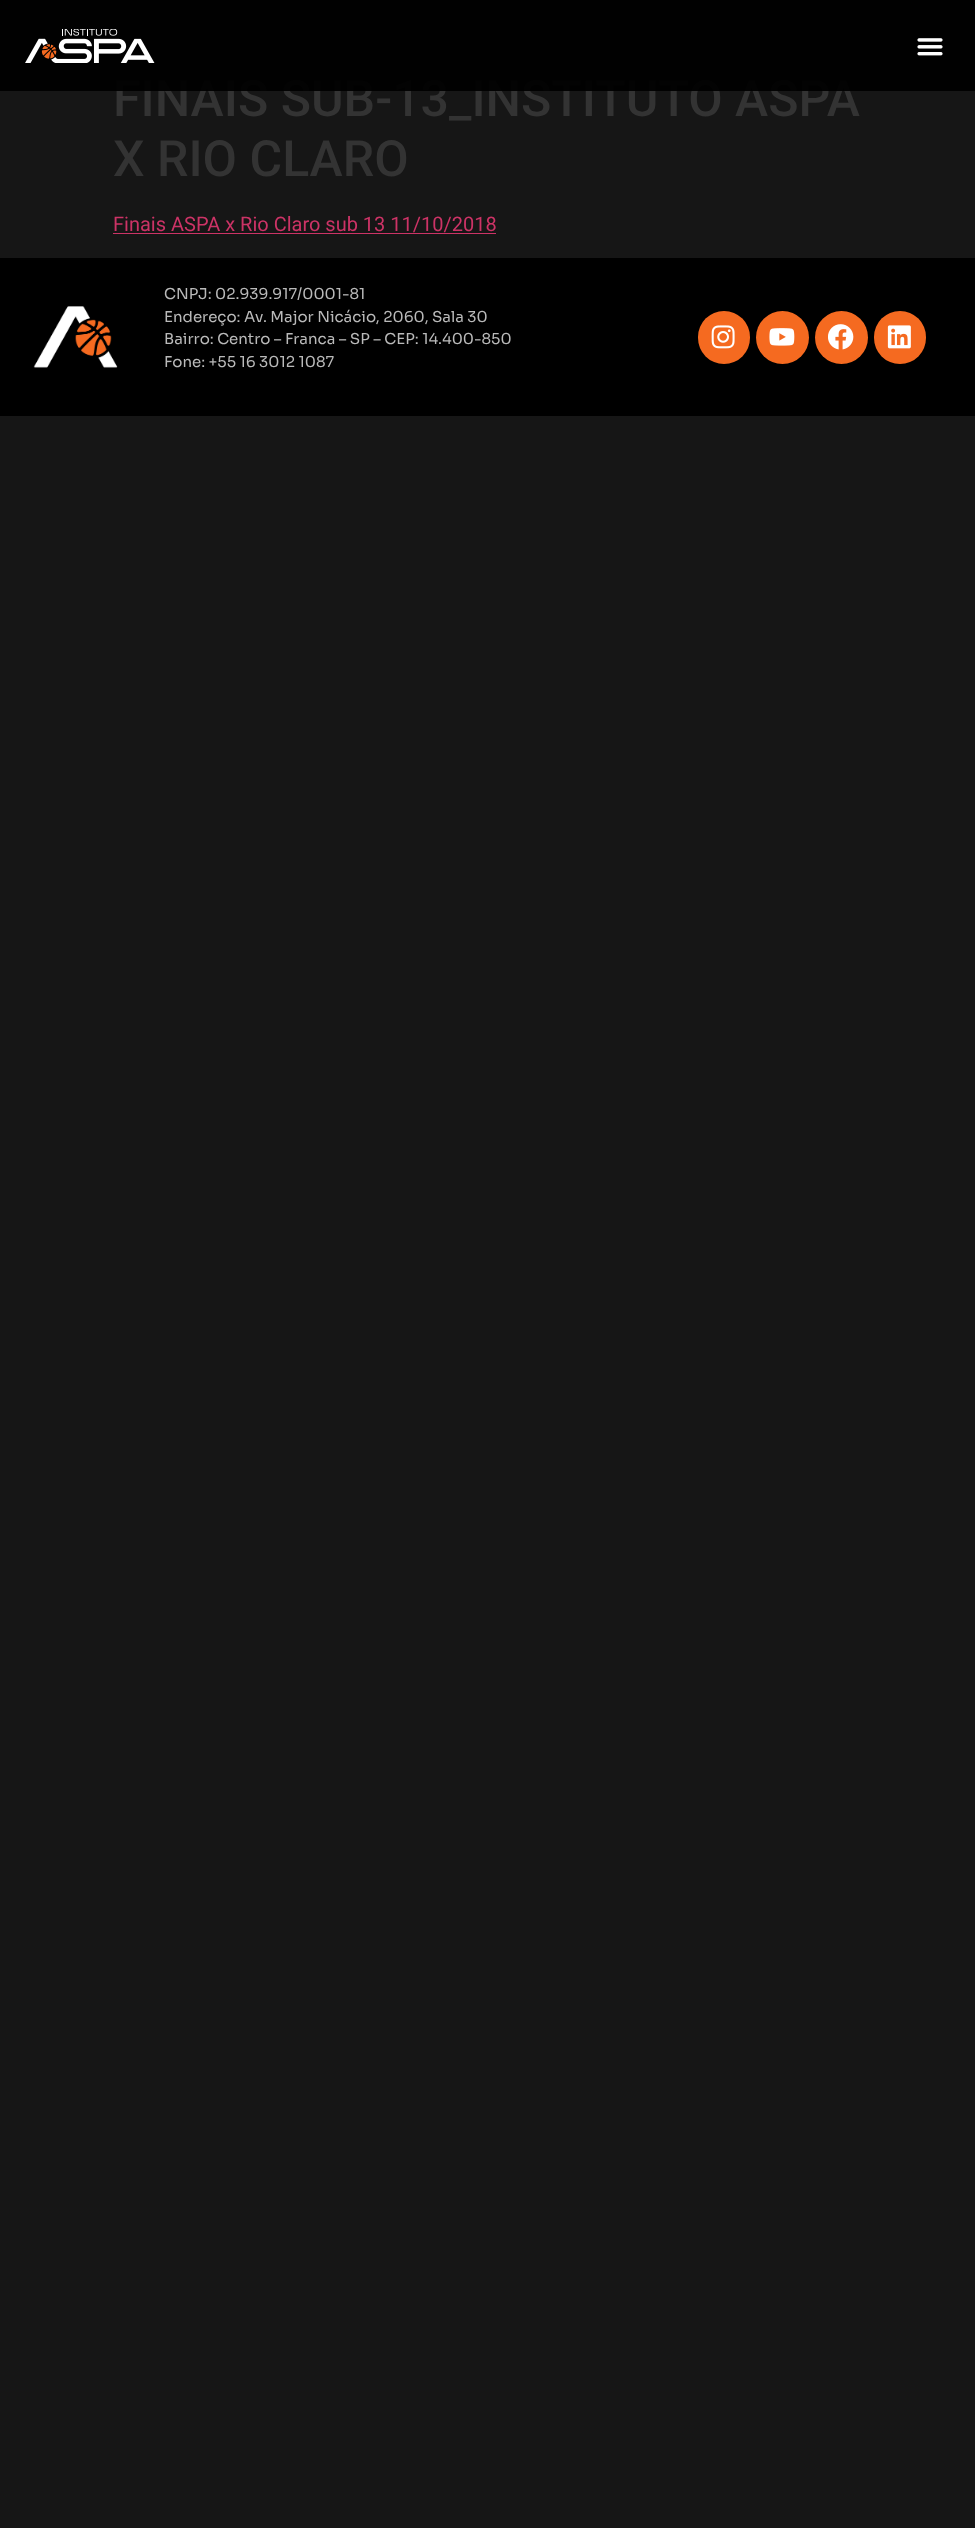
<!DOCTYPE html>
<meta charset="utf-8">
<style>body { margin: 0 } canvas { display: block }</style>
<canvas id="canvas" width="975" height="2528"></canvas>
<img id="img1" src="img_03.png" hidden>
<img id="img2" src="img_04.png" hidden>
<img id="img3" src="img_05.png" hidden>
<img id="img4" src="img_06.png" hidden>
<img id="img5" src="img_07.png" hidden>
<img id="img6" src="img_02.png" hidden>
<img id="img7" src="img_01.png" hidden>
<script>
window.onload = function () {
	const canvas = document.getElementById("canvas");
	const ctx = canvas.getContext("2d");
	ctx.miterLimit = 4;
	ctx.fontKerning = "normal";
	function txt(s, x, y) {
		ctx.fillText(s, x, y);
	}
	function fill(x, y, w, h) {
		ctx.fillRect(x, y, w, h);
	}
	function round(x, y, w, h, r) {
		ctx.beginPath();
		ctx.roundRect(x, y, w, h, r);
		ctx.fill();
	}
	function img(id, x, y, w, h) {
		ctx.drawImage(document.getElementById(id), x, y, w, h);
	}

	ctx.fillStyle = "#161616";
	fill(0, 0, 975, 2528);
	ctx.fillStyle = "#CC3366";
	fill(113, 233, 383, 1);
	ctx.fillStyle = "#000000";
	fill(0, 258, 975, 158);
	img("img1", 33, 306, 85, 62);
	ctx.fillStyle = "#F56A20";
	round(698, 311, 52, 53, 26);
	img("img2", 711, 325, 24, 24);
	ctx.beginPath();
	ctx.arc(782.5, 337.5, 26.5, 0, Math.PI * 2);
	ctx.fill();
	img("img3", 769, 328, 26, 18);
	ctx.beginPath();
	ctx.arc(841.5, 337.5, 26.5, 0, Math.PI * 2);
	ctx.fill();
	img("img4", 828, 324, 26, 26);
	round(874, 311, 52, 53, 26);
	img("img5", 887, 325, 24, 24);
	ctx.font = "500 50px Roboto";
	ctx.fillStyle = "#333333";
	txt("FINAIS SUB-13_INSTITUTO ASPA", 113, 116);
	ctx.fillStyle = "rgba(0, 0, 0, 0.93)";
	fill(0, 0, 975, 91);
	img("img6", 917, 38, 26, 18);
	img("img7", 25, 29, 130, 34);
	ctx.fillStyle = "#333333";
	txt("X RIO CLARO", 113, 176);
	ctx.font = "20px Roboto";
	ctx.fillStyle = "#CC3366";
	txt("Finais ASPA x Rio Claro sub 13 11/10/2018", 113, 231);
	ctx.font = "15px Sora";
	ctx.fillStyle = "#BABABA";
	txt("CNPJ: 02.939.917/0001-81", 164, 299);
	txt("Endereço: Av. Major Nicácio, 2060, Sala 30", 164, 322);
	txt("Bairro: Centro – Franca – SP – CEP: 14.400-850", 164, 344);
	txt("Fone: +55 16 3012 1087", 164, 367);
};
</script>
